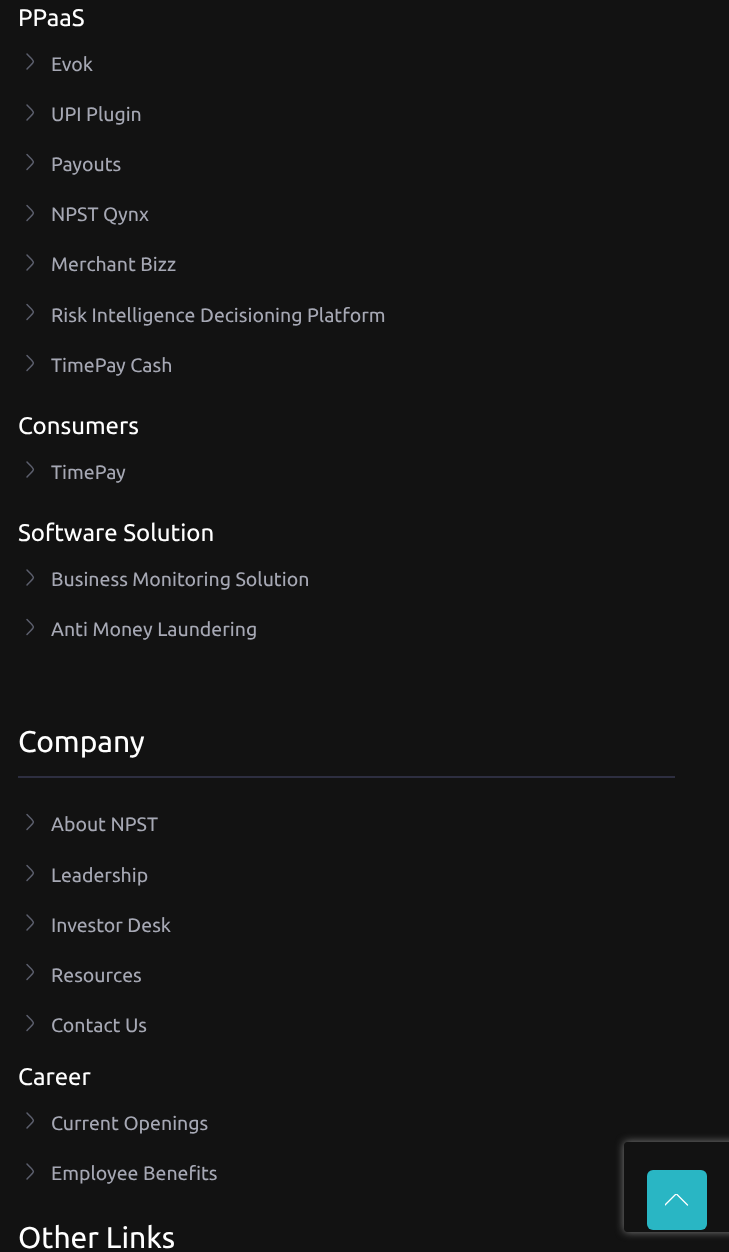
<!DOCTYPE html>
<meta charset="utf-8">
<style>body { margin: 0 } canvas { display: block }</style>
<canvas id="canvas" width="729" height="1252"></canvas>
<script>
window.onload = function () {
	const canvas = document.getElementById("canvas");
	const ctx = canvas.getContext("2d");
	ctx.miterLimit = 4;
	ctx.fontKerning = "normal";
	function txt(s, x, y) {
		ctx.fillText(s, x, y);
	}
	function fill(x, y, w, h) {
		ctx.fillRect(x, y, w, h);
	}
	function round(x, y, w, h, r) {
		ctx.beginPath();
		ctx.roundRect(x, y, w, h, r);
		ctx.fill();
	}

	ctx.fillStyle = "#121212";
	fill(0, 0, 729, 1252);
	ctx.beginPath();
	ctx.moveTo(27, 54);
	ctx.bezierCurveTo(35.5, 63, 35.5, 60, 27, 69);
	ctx.strokeStyle = "#5C5F6D";
	ctx.lineWidth = 1.5;
	ctx.lineCap = "round";
	ctx.stroke();
	ctx.beginPath();
	ctx.moveTo(27, 105);
	ctx.bezierCurveTo(35.5, 114, 35.5, 111, 27, 120);
	ctx.stroke();
	ctx.beginPath();
	ctx.moveTo(27, 154.5);
	ctx.bezierCurveTo(35.5, 163.5, 35.5, 160.5, 27, 169.5);
	ctx.stroke();
	ctx.beginPath();
	ctx.moveTo(27, 205.5);
	ctx.bezierCurveTo(35.5, 214.5, 35.5, 211.5, 27, 220.5);
	ctx.stroke();
	ctx.beginPath();
	ctx.moveTo(27, 255);
	ctx.bezierCurveTo(35.5, 264, 35.5, 261, 27, 270);
	ctx.stroke();
	ctx.beginPath();
	ctx.moveTo(27, 304.5);
	ctx.bezierCurveTo(35.5, 313.5, 35.5, 310.5, 27, 319.5);
	ctx.stroke();
	ctx.beginPath();
	ctx.moveTo(27, 355.5);
	ctx.bezierCurveTo(35.5, 364.5, 35.5, 361.5, 27, 370.5);
	ctx.stroke();
	ctx.beginPath();
	ctx.moveTo(27, 462);
	ctx.bezierCurveTo(35.5, 471, 35.5, 468, 27, 477);
	ctx.stroke();
	ctx.beginPath();
	ctx.moveTo(27, 570);
	ctx.bezierCurveTo(35.5, 579, 35.5, 576, 27, 585);
	ctx.stroke();
	ctx.beginPath();
	ctx.moveTo(27, 619.5);
	ctx.bezierCurveTo(35.5, 628.5, 35.5, 625.5, 27, 634.5);
	ctx.stroke();
	ctx.fillStyle = "#2D2E40";
	fill(18, 776, 657, 2);
	ctx.beginPath();
	ctx.moveTo(27, 814.5);
	ctx.bezierCurveTo(35.5, 823.5, 35.5, 820.5, 27, 829.5);
	ctx.stroke();
	ctx.beginPath();
	ctx.moveTo(27, 865.5);
	ctx.bezierCurveTo(35.5, 874.5, 35.5, 871.5, 27, 880.5);
	ctx.stroke();
	ctx.beginPath();
	ctx.moveTo(27, 915);
	ctx.bezierCurveTo(35.5, 924, 35.5, 921, 27, 930);
	ctx.stroke();
	ctx.beginPath();
	ctx.moveTo(27, 964.5);
	ctx.bezierCurveTo(35.5, 973.5, 35.5, 970.5, 27, 979.5);
	ctx.stroke();
	ctx.beginPath();
	ctx.moveTo(27, 1015.5);
	ctx.bezierCurveTo(35.5, 1024.5, 35.5, 1021.5, 27, 1030.5);
	ctx.stroke();
	ctx.beginPath();
	ctx.moveTo(27, 1113);
	ctx.bezierCurveTo(35.5, 1122, 35.5, 1119, 27, 1128);
	ctx.stroke();
	ctx.beginPath();
	ctx.moveTo(27, 1164);
	ctx.bezierCurveTo(35.5, 1173, 35.5, 1170, 27, 1179);
	ctx.stroke();
	ctx.save();
	ctx.beginPath();
	ctx.moveTo(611, 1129);
	ctx.lineTo(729, 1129);
	ctx.lineTo(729, 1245);
	ctx.lineTo(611, 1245);
	ctx.closePath();
	ctx.moveTo(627, 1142);
	ctx.lineTo(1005, 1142);
	ctx.bezierCurveTo(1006.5, 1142, 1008, 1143.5, 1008, 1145);
	ctx.lineTo(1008, 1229);
	ctx.bezierCurveTo(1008, 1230.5, 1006.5, 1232, 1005, 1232);
	ctx.lineTo(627, 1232);
	ctx.bezierCurveTo(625.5, 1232, 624, 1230.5, 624, 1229);
	ctx.lineTo(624, 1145);
	ctx.bezierCurveTo(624, 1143.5, 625.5, 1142, 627, 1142);
	ctx.closePath();
	ctx.clip("evenodd");
	ctx.fillStyle = "#808080";
	ctx.filter = "blur(4px)";
	ctx.beginPath();
	ctx.roundRect(624, 1142, 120, 90, 3);
	ctx.fill();
	ctx.filter = "none";
	ctx.restore();
	ctx.fillStyle = "#29B6C4";
	round(647, 1170, 60, 60, 6);
	ctx.save();
	ctx.beginPath();
	ctx.rect(665, 1194, 24, 12);
	ctx.clip();
	ctx.beginPath();
	ctx.moveTo(665, 1205);
	ctx.lineTo(675.5, 1194.5);
	ctx.bezierCurveTo(676, 1194, 676.5, 1194, 677, 1194.5);
	ctx.lineTo(687.5, 1205);
	ctx.strokeStyle = "#FFFFFF";
	ctx.lineWidth = 1.3;
	ctx.stroke();
	ctx.restore();
	ctx.font = "24px Ubuntu";
	ctx.fillStyle = "#FFFFFF";
	txt("PPaaS", 18, 26);
	ctx.font = "19.5px Ubuntu";
	ctx.fillStyle = "#A6A8B4";
	txt("Evok", 51, 71);
	txt("UPI Plugin", 51, 121);
	txt("Payouts", 51, 171);
	txt("NPST Qynx", 51, 221);
	txt("Merchant Bizz", 51, 271);
	txt("Risk Intelligence Decisioning Platform", 51, 322);
	txt("TimePay Cash", 51, 372);
	ctx.font = "24px Ubuntu";
	ctx.fillStyle = "#FFFFFF";
	txt("Consumers", 18, 434);
	ctx.font = "19.5px Ubuntu";
	ctx.fillStyle = "#A6A8B4";
	txt("TimePay", 51, 479);
	ctx.font = "24px Ubuntu";
	ctx.fillStyle = "#FFFFFF";
	txt("Software Solution", 18, 541);
	ctx.font = "19.5px Ubuntu";
	ctx.fillStyle = "#A6A8B4";
	txt("Business Monitoring Solution", 51, 586);
	txt("Anti Money Laundering", 51, 636);
	ctx.font = "30px Ubuntu";
	ctx.fillStyle = "#FFFFFF";
	txt("Company", 18, 752);
	ctx.font = "19.5px Ubuntu";
	ctx.fillStyle = "#A6A8B4";
	txt("About NPST", 51, 831);
	txt("Leadership", 51, 882);
	txt("Investor Desk", 51, 932);
	txt("Resources", 51, 982);
	txt("Contact Us", 51, 1032);
	ctx.font = "24px Ubuntu";
	ctx.fillStyle = "#FFFFFF";
	txt("Career", 18, 1085);
	ctx.font = "19.5px Ubuntu";
	ctx.fillStyle = "#A6A8B4";
	txt("Current Openings", 51, 1130);
	txt("Employee Benefits", 51, 1180);
	ctx.font = "30px Ubuntu";
	ctx.fillStyle = "#FFFFFF";
	txt("Other Links", 18, 1248);
};
</script>
